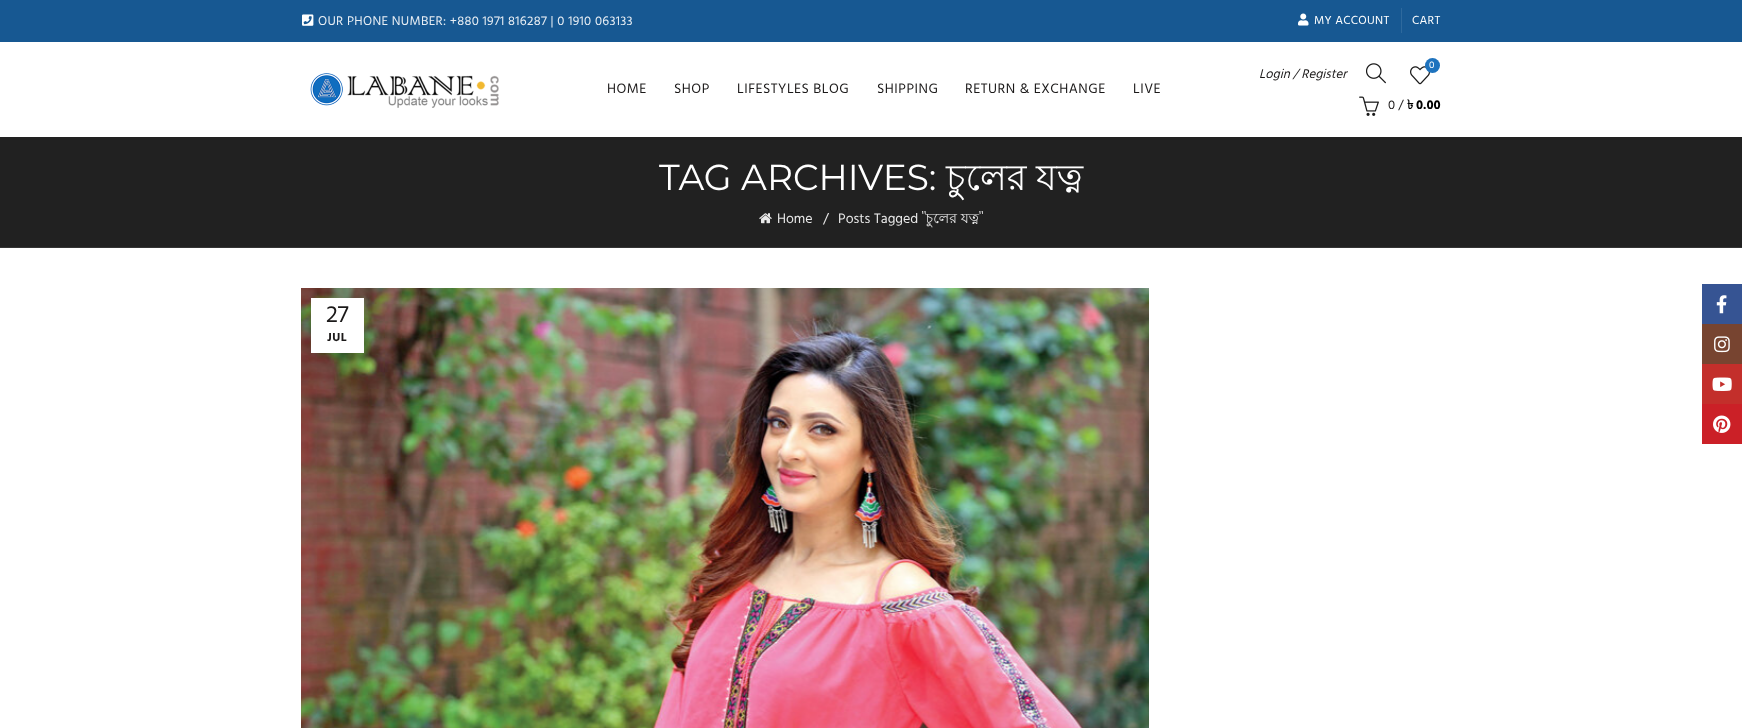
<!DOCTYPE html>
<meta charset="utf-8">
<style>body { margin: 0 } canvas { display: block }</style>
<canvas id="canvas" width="1742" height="728"></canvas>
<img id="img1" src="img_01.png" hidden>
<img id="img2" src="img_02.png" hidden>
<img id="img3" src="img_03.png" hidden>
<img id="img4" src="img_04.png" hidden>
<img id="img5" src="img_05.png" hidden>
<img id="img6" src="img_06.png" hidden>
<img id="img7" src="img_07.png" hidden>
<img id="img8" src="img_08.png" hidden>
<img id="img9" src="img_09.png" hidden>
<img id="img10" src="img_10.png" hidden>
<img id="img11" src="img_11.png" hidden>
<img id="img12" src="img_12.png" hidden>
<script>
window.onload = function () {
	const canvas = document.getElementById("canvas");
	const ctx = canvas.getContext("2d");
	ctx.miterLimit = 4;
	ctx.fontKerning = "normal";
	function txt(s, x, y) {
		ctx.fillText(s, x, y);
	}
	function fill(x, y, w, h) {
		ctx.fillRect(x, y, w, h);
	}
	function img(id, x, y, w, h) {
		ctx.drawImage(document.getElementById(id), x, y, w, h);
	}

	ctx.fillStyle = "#FFFFFF";
	fill(0, 0, 1742, 728);
	ctx.fillStyle = "#175892";
	fill(0, 0, 1742, 42);
	img("img1", 302, 14, 12, 12);
	img("img2", 1298, 13, 11, 13);
	ctx.fillStyle = "#2E699D";
	fill(1401, 8, 1, 25);
	img("img3", 310, 73, 189, 35);
	img("img4", 1366, 63, 20, 21);
	img("img5", 1410, 66, 20, 19);
	ctx.fillStyle = "#1E73BE";
	ctx.beginPath();
	ctx.arc(1432.5, 65.5, 7.5, 0, Math.PI * 2);
	ctx.fill();
	img("img6", 1359, 96, 20, 20);
	ctx.fillStyle = "#212121";
	fill(0, 137, 1742, 110);
	ctx.fillStyle = "#353535";
	fill(0, 247, 1742, 1);
	img("img7", 759, 213, 13, 11);
	img("img8", 301, 288, 848, 440);
	ctx.fillStyle = "rgba(0, 0, 0, 0.1)";
	ctx.filter = "blur(4.5px)";
	ctx.beginPath();
	ctx.rect(311, 298, 53, 55);
	ctx.fill();
	ctx.filter = "none";
	ctx.fillStyle = "#FFFFFF";
	fill(311, 298, 53, 55);
	ctx.fillStyle = "#365493";
	fill(1702, 284, 40, 40);
	img("img9", 1716, 295, 11, 19);
	ctx.fillStyle = "#774430";
	fill(1702, 324, 40, 40);
	img("img10", 1714, 336, 16, 17);
	ctx.fillStyle = "#C32F2B";
	fill(1702, 364, 40, 40);
	img("img11", 1712, 377, 20, 14);
	ctx.fillStyle = "#CB2027";
	fill(1702, 404, 40, 40);
	img("img12", 1713, 415, 18, 18);
	ctx.letterSpacing = "0.3px";
	ctx.font = "13px Hind";
	ctx.fillStyle = "#E8EEF4";
	txt("OUR PHONE NUMBER: +880 1971 816287 | 0 1910 063133", 318, 25);
	ctx.font = "12px Hind";
	ctx.fillStyle = "#FFFFFF";
	txt("MY ACCOUNT", 1314, 24);
	txt("CART", 1412, 24);
	ctx.letterSpacing = "0.5px";
	ctx.font = "14px Hind";
	ctx.fillStyle = "#1B1919";
	txt("HOME", 607, 93);
	txt("SHOP", 674, 93);
	txt("LIFESTYLES BLOG", 737, 93);
	txt("SHIPPING", 877, 93);
	txt("RETURN & EXCHANGE", 965, 93);
	txt("LIVE", 1133, 93);
	ctx.letterSpacing = "0px";
	ctx.font = "italic 13px Hind";
	txt("Login / Register", 1259, 78);
	ctx.font = "10px Hind";
	ctx.fillStyle = "#FFFFFF";
	txt("0", 1429, 68);
	ctx.font = "13px Hind";
	ctx.fillStyle = "#1B1919";
	txt("0 /", 1388, 109);
	ctx.font = "bold 13px Lohit Bengali";
	ctx.fillStyle = "#000000";
	txt("৳", 1407, 109);
	ctx.font = "bold 13px Hind";
	txt("0.00", 1416, 109);
	ctx.font = "36px Montserrat";
	ctx.fillStyle = "#FFFFFF";
	txt("TAG ARCHIVES:", 659, 190);
	ctx.font = "36px Lohit Bengali";
	txt("চুলের", 946, 190);
	txt("যত্ন", 1036, 190);
	ctx.font = "14px Hind";
	ctx.fillStyle = "#E9E9E9";
	txt("Home", 777, 223);
	txt("/", 823, 223);
	txt("Posts", 838, 223);
	txt("Tagged", 874, 223);
	ctx.font = "14px Lohit Bengali";
	txt("\"চুলের যত্ন\"", 922, 223);
	ctx.font = "24px Hind";
	ctx.fillStyle = "#1B1919";
	txt("27", 326, 322);
	ctx.letterSpacing = "0.5px";
	ctx.font = "bold 12px Hind";
	txt("JUL", 327, 341);
};
</script>
